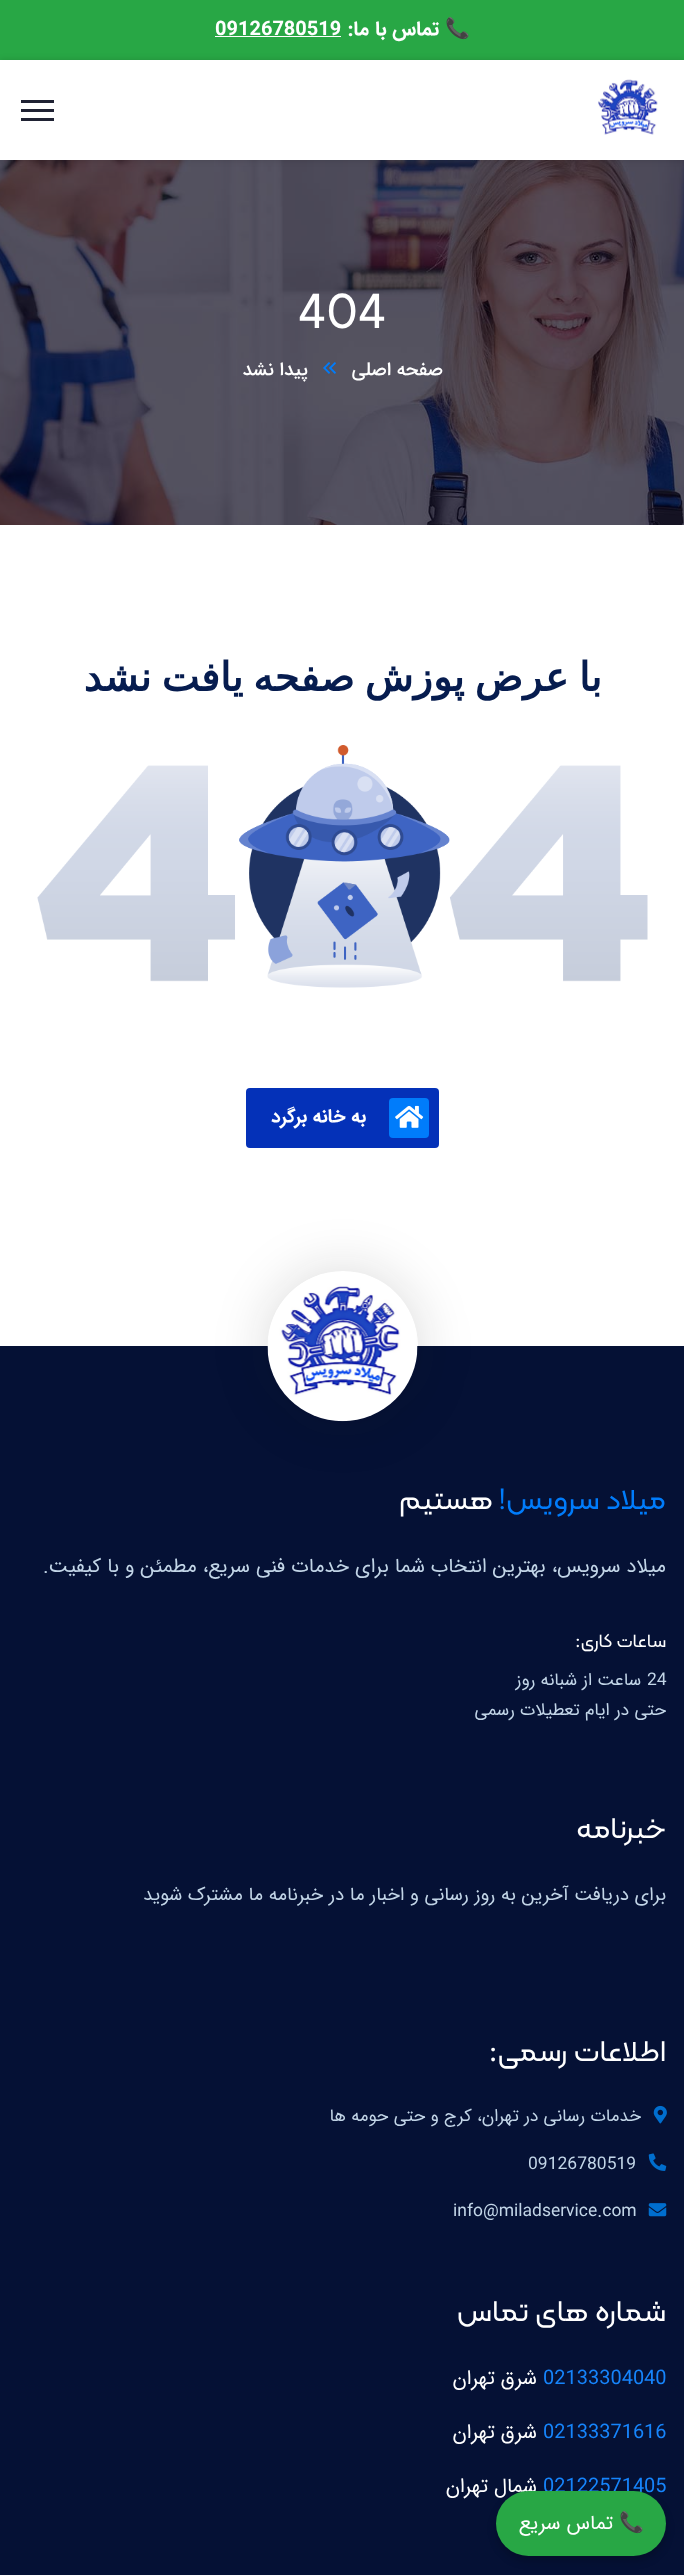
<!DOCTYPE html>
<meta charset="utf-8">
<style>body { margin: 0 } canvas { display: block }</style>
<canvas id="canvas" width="684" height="2575"></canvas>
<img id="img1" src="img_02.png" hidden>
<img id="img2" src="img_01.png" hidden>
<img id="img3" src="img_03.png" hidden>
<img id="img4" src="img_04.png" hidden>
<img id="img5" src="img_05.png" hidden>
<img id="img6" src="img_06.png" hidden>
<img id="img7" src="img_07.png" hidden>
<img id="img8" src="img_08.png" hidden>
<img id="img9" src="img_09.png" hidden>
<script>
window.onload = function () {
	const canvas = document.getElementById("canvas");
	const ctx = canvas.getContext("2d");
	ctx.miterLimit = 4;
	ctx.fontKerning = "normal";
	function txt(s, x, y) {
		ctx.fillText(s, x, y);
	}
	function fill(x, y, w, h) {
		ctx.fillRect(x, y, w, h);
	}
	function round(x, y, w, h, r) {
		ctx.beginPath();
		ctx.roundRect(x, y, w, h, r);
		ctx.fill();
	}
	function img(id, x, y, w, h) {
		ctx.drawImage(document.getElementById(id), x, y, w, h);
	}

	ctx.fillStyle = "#FFFFFF";
	fill(0, 0, 684, 2575);
	ctx.fillStyle = "#28A745";
	fill(0, 0, 684, 60);
	ctx.fillStyle = "#FFFFFF";
	fill(215, 36, 126, 1);
	img("img1", 0, 160, 684, 365);
	ctx.save();
	ctx.beginPath();
	ctx.moveTo(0, 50);
	ctx.lineTo(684, 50);
	ctx.lineTo(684, 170);
	ctx.lineTo(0, 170);
	ctx.closePath();
	ctx.moveTo(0, 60);
	ctx.lineTo(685, 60);
	ctx.lineTo(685, 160);
	ctx.lineTo(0, 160);
	ctx.closePath();
	ctx.clip("evenodd");
	ctx.fillStyle = "rgba(0, 0, 0, 0.15)";
	ctx.filter = "blur(3px)";
	ctx.beginPath();
	ctx.rect(0, 60, 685, 100);
	ctx.fill();
	ctx.filter = "none";
	ctx.restore();
	img("img2", 598, 79, 60, 56);
	ctx.fillStyle = "#1F2233";
	fill(21, 100, 33, 3);
	fill(21, 109, 33, 3);
	fill(21, 118, 33, 3);
	img("img3", 323, 362, 13, 12);
	img("img4", 37, 745, 611, 243);
	ctx.fillStyle = "#0431B8";
	round(246, 1088, 193, 60, 4);
	ctx.fillStyle = "#007CFB";
	round(389, 1098, 40, 40, 4);
	img("img5", 395, 1105, 29, 23);
	ctx.fillStyle = "#051135";
	fill(0, 1346, 684, 1229);
	ctx.save();
	ctx.beginPath();
	ctx.moveTo(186, 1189);
	ctx.lineTo(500, 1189);
	ctx.lineTo(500, 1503);
	ctx.lineTo(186, 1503);
	ctx.closePath();
	ctx.moveTo(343, 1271);
	ctx.bezierCurveTo(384.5, 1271, 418, 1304.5, 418, 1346);
	ctx.bezierCurveTo(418, 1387.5, 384.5, 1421, 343, 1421);
	ctx.bezierCurveTo(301.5, 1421, 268, 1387.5, 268, 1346);
	ctx.bezierCurveTo(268, 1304.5, 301.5, 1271, 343, 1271);
	ctx.closePath();
	ctx.clip("evenodd");
	ctx.fillStyle = "rgba(12, 12, 12, 0.16)";
	ctx.filter = "blur(27px)";
	ctx.beginPath();
	ctx.roundRect(268, 1271, 150, 150, 75);
	ctx.fill();
	ctx.filter = "none";
	ctx.restore();
	img("img6", 267, 1274, 151, 148);
	img("img7", 653, 2105, 14, 19);
	img("img8", 648, 2153, 19, 18);
	img("img9", 648, 2203, 19, 14);
	ctx.fillStyle = "rgba(0, 0, 0, 0.2)";
	ctx.filter = "blur(4px)";
	ctx.beginPath();
	ctx.roundRect(496, 2496, 170, 65, 32.5);
	ctx.fill();
	ctx.filter = "none";
	ctx.direction = "rtl";
	ctx.font = "bold 20px Noto Color Emoji";
	ctx.fillStyle = "#FFFFFF";
	txt("📞", 470, 35);
	ctx.font = "bold 20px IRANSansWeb";
	txt("تماس با ما:", 439, 35);
	ctx.direction = "ltr";
	txt("09126780519", 215, 35);
	ctx.font = "50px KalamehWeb";
	txt("404", 298, 328);
	ctx.direction = "rtl";
	ctx.font = "500 18.75px IRANSansWeb";
	txt("صفحه اصلی", 443, 375);
	txt("پیدا نشد", 308, 375);
	ctx.wordSpacing = "-2.75px";
	ctx.font = "bold 40px DejaVu Sans";
	ctx.fillStyle = "#061C4F";
	txt("با عرض پوزش صفحه یافت نشد", 602, 691);
	ctx.wordSpacing = "0px";
	ctx.font = "bold 18.75px IRANSansWeb";
	ctx.fillStyle = "#FFFFFF";
	txt("به خانه برگرد", 366, 1122);
	ctx.font = "30px KalamehWeb";
	ctx.fillStyle = "#007CFB";
	txt("میلاد سرویس!", 666, 1509);
	ctx.fillStyle = "#FFFFFF";
	txt("هستیم", 493, 1509);
	ctx.font = "20px IRANSansWeb";
	ctx.fillStyle = "#C2D5E7";
	txt("میلاد سرویس، بهترین انتخاب شما برای خدمات فنی سریع، مطمئن و با کیفیت.", 666, 1572);
	ctx.font = "18.75px KalamehWeb";
	ctx.fillStyle = "#FFFFFF";
	txt("ساعات کاری:", 666, 1647);
	ctx.direction = "ltr";
	ctx.font = "17.5px IRANSansWeb";
	ctx.fillStyle = "#C2D5E7";
	txt("24", 647, 1685);
	ctx.direction = "rtl";
	txt("ساعت از شبانه روز", 641, 1685);
	txt("حتی در ایام تعطیلات رسمی", 666, 1715);
	ctx.font = "30px KalamehWeb";
	ctx.fillStyle = "#FFFFFF";
	txt("خبرنامه", 666, 1838);
	ctx.font = "18.75px IRANSansWeb";
	ctx.fillStyle = "#C2D5E7";
	txt("برای دریافت آخرین به روز رسانی و اخبار ما در خبرنامه ما مشترک شوید", 666, 1900);
	ctx.font = "30px KalamehWeb";
	ctx.fillStyle = "#FFFFFF";
	txt("اطلاعات رسمی:", 666, 2061);
	ctx.font = "17.5px IRANSansWeb";
	ctx.fillStyle = "#C2D5E7";
	txt("خدمات رسانی در تهران، کرج و حتی حومه ها", 641, 2121);
	ctx.direction = "ltr";
	txt("09126780519", 528, 2169);
	txt("info@miladservice.com", 453, 2216);
	ctx.direction = "rtl";
	ctx.font = "30px KalamehWeb";
	ctx.fillStyle = "#FFFFFF";
	txt("شماره های تماس", 666, 2321);
	ctx.direction = "ltr";
	ctx.font = "20px IRANSansWeb";
	ctx.fillStyle = "#1684FB";
	txt("02133304040", 543, 2384);
	ctx.direction = "rtl";
	ctx.fillStyle = "#FFFFFF";
	txt("شرق تهران", 537, 2384);
	ctx.direction = "ltr";
	ctx.fillStyle = "#1684FB";
	txt("02133371616", 543, 2438);
	ctx.direction = "rtl";
	ctx.fillStyle = "#FFFFFF";
	txt("شرق تهران", 537, 2438);
	ctx.direction = "ltr";
	ctx.fillStyle = "#1684FB";
	txt("02122571405", 543, 2492);
	ctx.direction = "rtl";
	ctx.fillStyle = "#FFFFFF";
	txt("شمال تهران", 537, 2492);
	ctx.fillStyle = "#28A745";
	round(496, 2491, 170, 65, 32.5);
	ctx.font = "20px Noto Color Emoji";
	ctx.fillStyle = "#FFFFFF";
	txt("📞", 644, 2529);
	ctx.font = "20px IRANSansWeb";
	txt("تماس سریع", 613, 2529);
};
</script>
